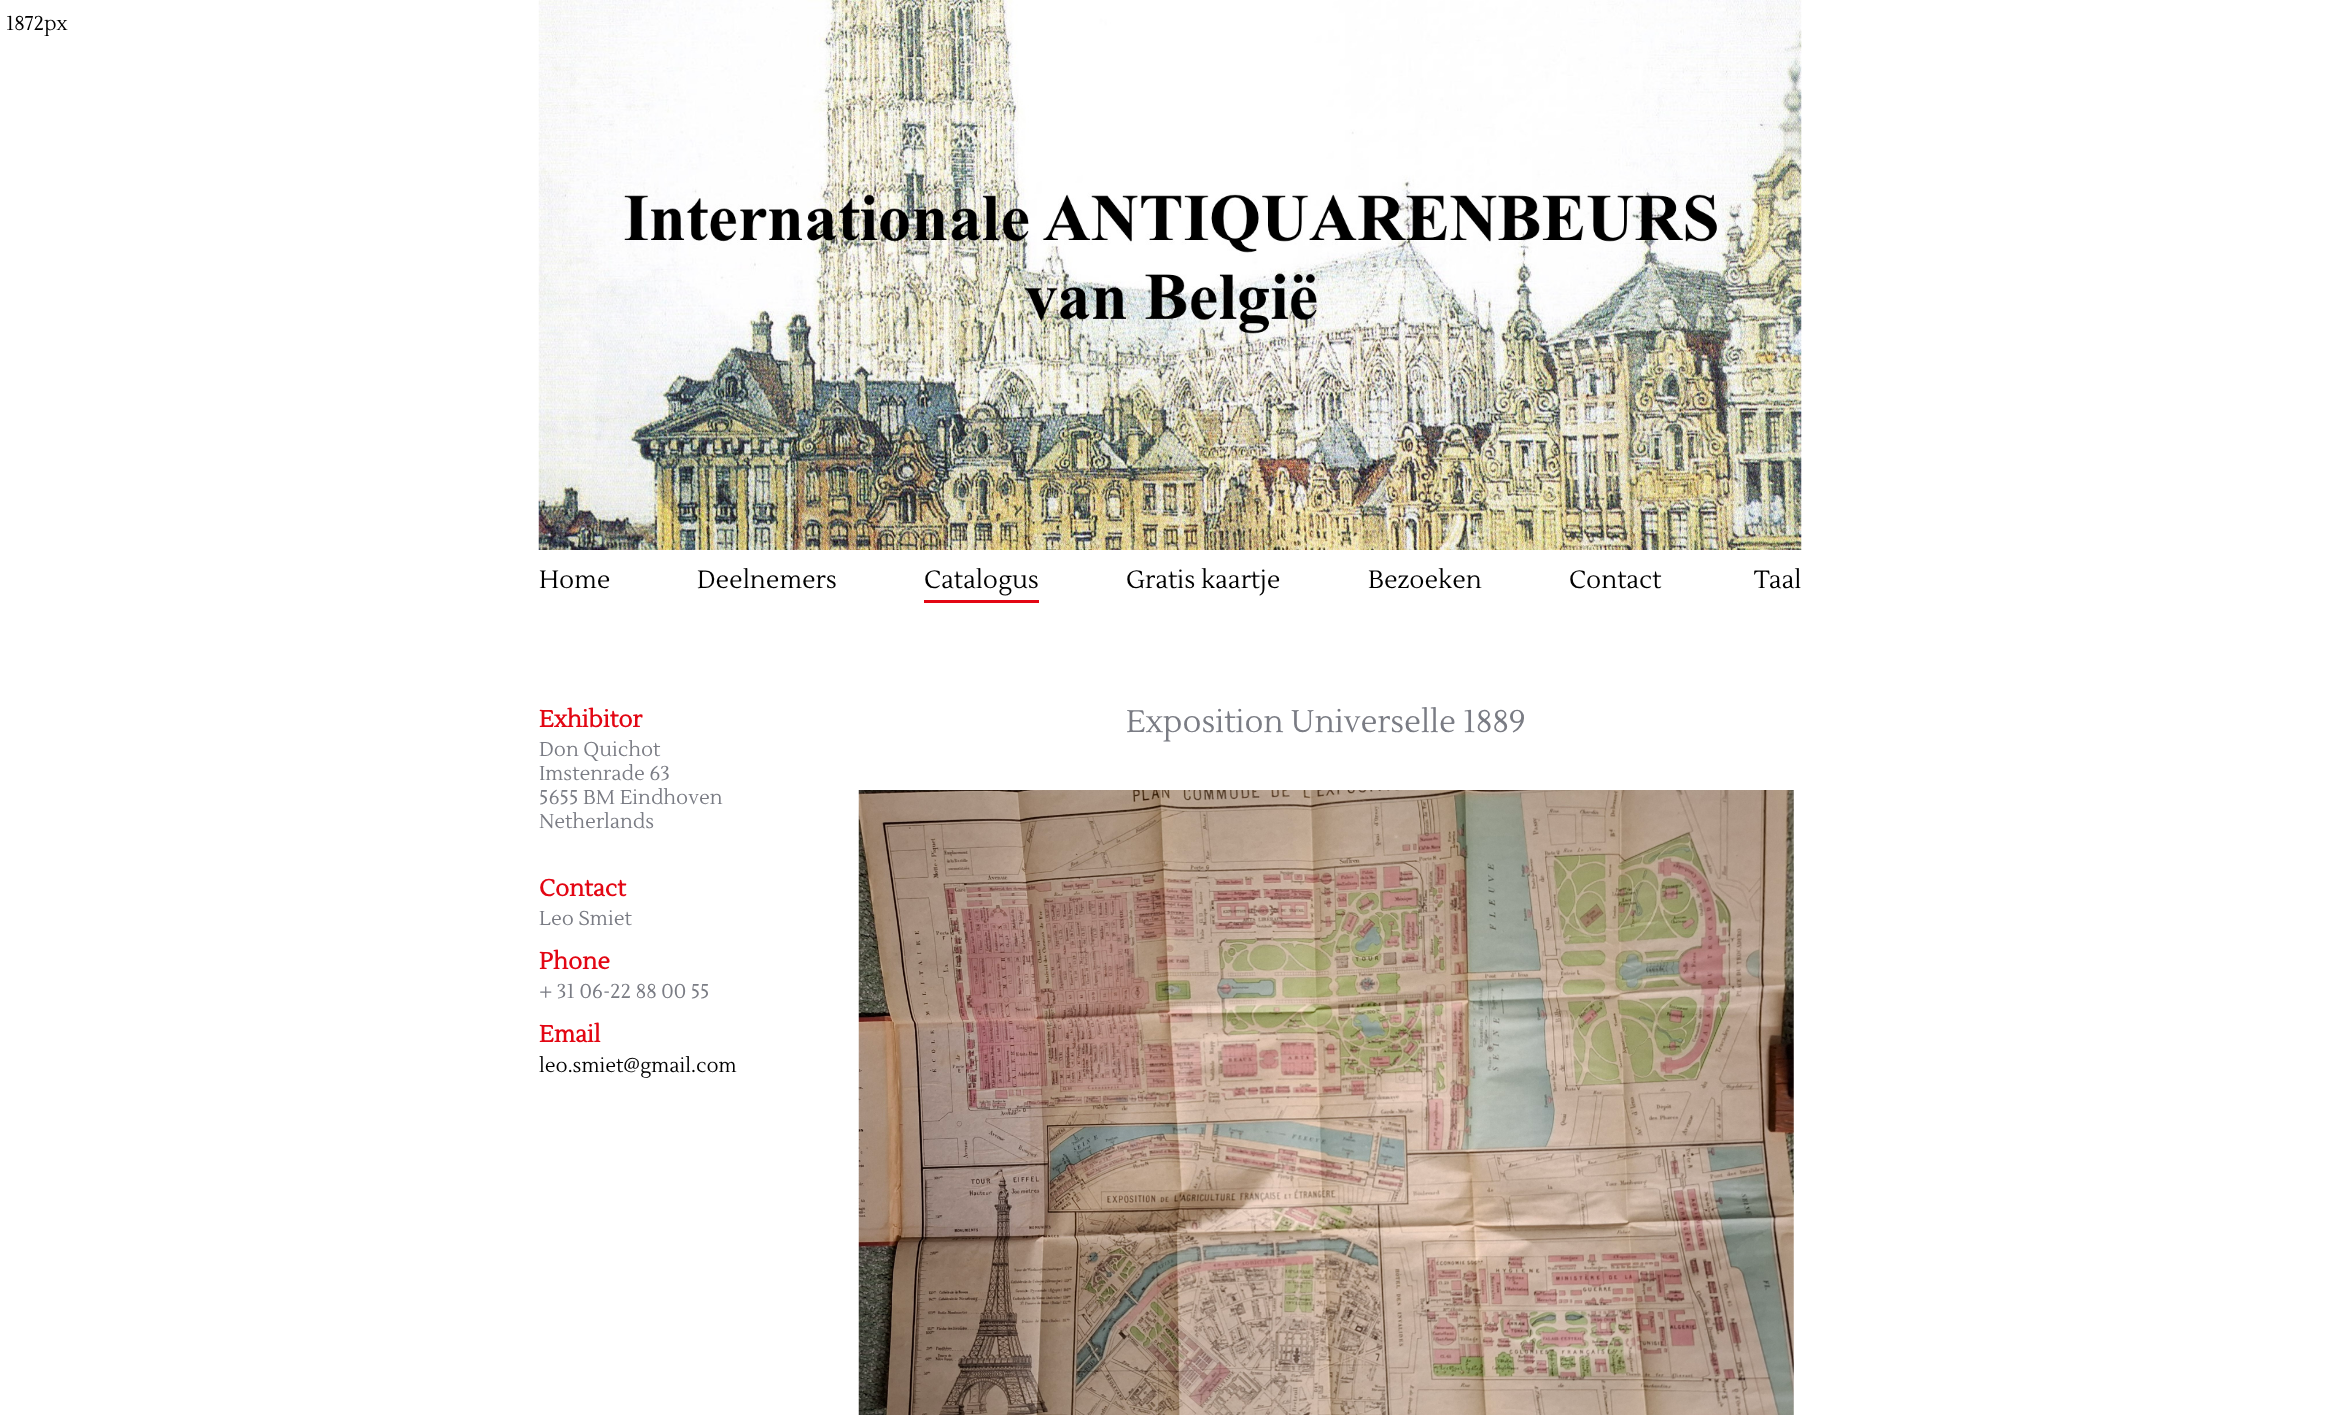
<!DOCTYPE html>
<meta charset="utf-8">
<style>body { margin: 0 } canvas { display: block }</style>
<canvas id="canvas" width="2339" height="1415"></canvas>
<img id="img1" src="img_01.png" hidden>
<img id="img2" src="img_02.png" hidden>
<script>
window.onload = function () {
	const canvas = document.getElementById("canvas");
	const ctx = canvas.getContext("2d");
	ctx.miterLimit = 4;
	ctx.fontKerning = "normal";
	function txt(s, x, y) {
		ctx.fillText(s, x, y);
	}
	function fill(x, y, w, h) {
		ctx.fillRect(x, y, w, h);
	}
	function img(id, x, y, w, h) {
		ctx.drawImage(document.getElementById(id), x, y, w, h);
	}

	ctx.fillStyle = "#FFFFFF";
	fill(0, 0, 2339, 1415);
	img("img1", 538, 0, 1264, 550);
	img("img2", 858, 790, 936, 625);
	ctx.fillStyle = "#E30613";
	fill(924, 600, 115, 3);
	ctx.font = "20px Lustria";
	ctx.fillStyle = "#000000";
	txt("1872px", 6, 30);
	ctx.font = "bold 23.5px Lustria";
	ctx.fillStyle = "#E30613";
	txt("Exhibitor", 539, 727);
	ctx.font = "20px Lustria";
	ctx.fillStyle = "#7A7C84";
	txt("Don Quichot", 539, 756);
	txt("Imstenrade 63", 539, 780);
	txt("5655 BM Eindhoven", 539, 804);
	txt("Netherlands", 539, 828);
	ctx.font = "bold 23.5px Lustria";
	ctx.fillStyle = "#E30613";
	txt("Contact", 539, 896);
	ctx.font = "20px Lustria";
	ctx.fillStyle = "#7A7C84";
	txt("Leo Smiet", 539, 925);
	ctx.font = "bold 23.5px Lustria";
	ctx.fillStyle = "#E30613";
	txt("Phone", 539, 969);
	ctx.font = "20px Lustria";
	ctx.fillStyle = "#7A7C84";
	txt("+ 31 06-22 88 00 55", 539, 998);
	ctx.font = "bold 23.5px Lustria";
	ctx.fillStyle = "#E30613";
	txt("Email", 539, 1042);
	ctx.font = "20px Lustria";
	ctx.fillStyle = "#000000";
	txt("leo.smiet@gmail.com", 539, 1072);
	ctx.font = "31.25px Lustria";
	ctx.fillStyle = "#7A7C84";
	txt("Exposition Universelle 1889", 1126, 732);
	ctx.font = "25px Lustria";
	ctx.fillStyle = "#000000";
	txt("Home", 539, 588);
	txt("Deelnemers", 697, 588);
	txt("Catalogus", 924, 588);
	txt("Gratis kaartje", 1126, 588);
	txt("Bezoeken", 1368, 588);
	txt("Contact", 1569, 588);
	txt("Taal", 1754, 588);
};
</script>
